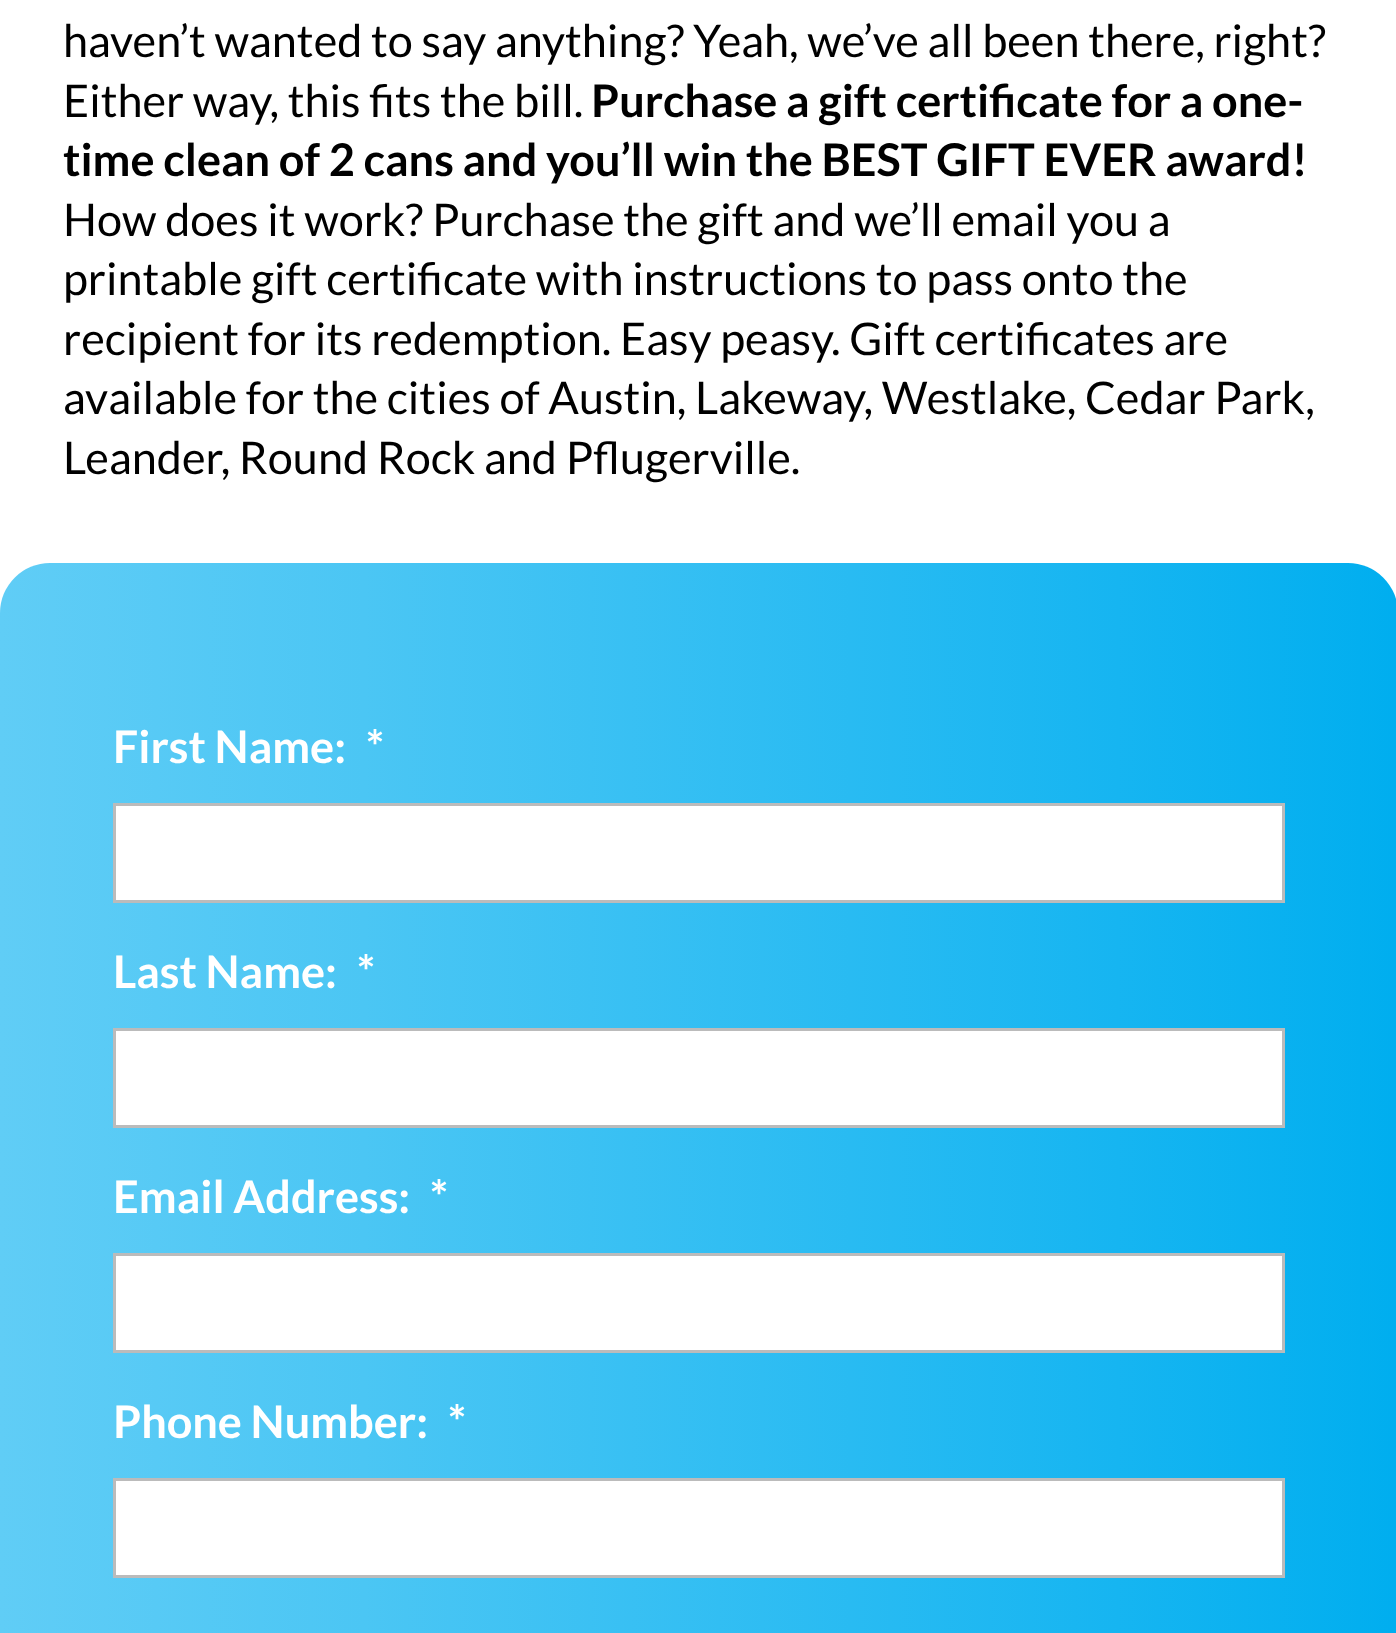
<!DOCTYPE html>
<meta charset="utf-8">
<style>body { margin: 0 } canvas { display: block }</style>
<canvas id="canvas" width="1396" height="1633"></canvas>
<script>
window.onload = function () {
	const canvas = document.getElementById("canvas");
	const ctx = canvas.getContext("2d");
	ctx.miterLimit = 4;
	ctx.fontKerning = "normal";
	function txt(s, x, y) {
		ctx.fillText(s, x, y);
	}
	function fill(x, y, w, h) {
		ctx.fillRect(x, y, w, h);
	}
	function round(x, y, w, h, r) {
		ctx.beginPath();
		ctx.roundRect(x, y, w, h, r);
		ctx.fill();
	}
	let gradient;

	ctx.fillStyle = "#FFFFFF";
	fill(0, 0, 1396, 1633);
	gradient = ctx.createLinearGradient(0, 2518, 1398, 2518);
	gradient.addColorStop(0, "#60CDF6");
	gradient.addColorStop(0.26, "#4BC6F4");
	gradient.addColorStop(0.8, "#16B5F1");
	gradient.addColorStop(1, "#00AEEF");
	ctx.fillStyle = gradient;
	round(0, 563, 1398, 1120, 50);
	ctx.fillStyle = "#FFFFFF";
	ctx.beginPath();
	ctx.rect(114.5, 804.5, 1169, 97);
	ctx.fill();
	ctx.strokeStyle = "#BBBBBB";
	ctx.lineWidth = 3;
	ctx.stroke();
	ctx.beginPath();
	ctx.rect(114.5, 1029.5, 1169, 97);
	ctx.fill();
	ctx.stroke();
	ctx.beginPath();
	ctx.rect(114.5, 1254.5, 1169, 97);
	ctx.fill();
	ctx.stroke();
	ctx.beginPath();
	ctx.rect(114.5, 1479.5, 1169, 97);
	ctx.fill();
	ctx.stroke();
	ctx.font = "45px Lato";
	ctx.fillStyle = "#000000";
	txt("haven’t wanted to say anything? Yeah, we’ve all been there, right?", 63, 57);
	txt("Either way, this fits the bill.", 63, 117);
	ctx.font = "bold 45px Lato";
	txt("Purchase a gift certificate for a one-", 591, 117);
	txt("time clean of 2 cans and you’ll win the BEST GIFT EVER award!", 63, 176);
	ctx.font = "45px Lato";
	txt("How does it work? Purchase the gift and we’ll email you a", 63, 236);
	txt("printable gift certificate with instructions to pass onto the", 63, 295);
	txt("recipient for its redemption. Easy peasy. Gift certificates are", 63, 355);
	txt("available for the cities of Austin, Lakeway, Westlake, Cedar Park,", 63, 414);
	txt("Leander, Round Rock and Pflugerville.", 63, 474);
	ctx.font = "bold 45px Lato";
	ctx.fillStyle = "#FFFFFF";
	txt("First Name:", 113, 763);
	txt("*", 366, 763);
	txt("Last Name:", 113, 988);
	txt("*", 357, 988);
	txt("Email Address:", 113, 1213);
	txt("*", 430, 1213);
	txt("Phone Number:", 113, 1438);
	txt("*", 448, 1438);
};
</script>
